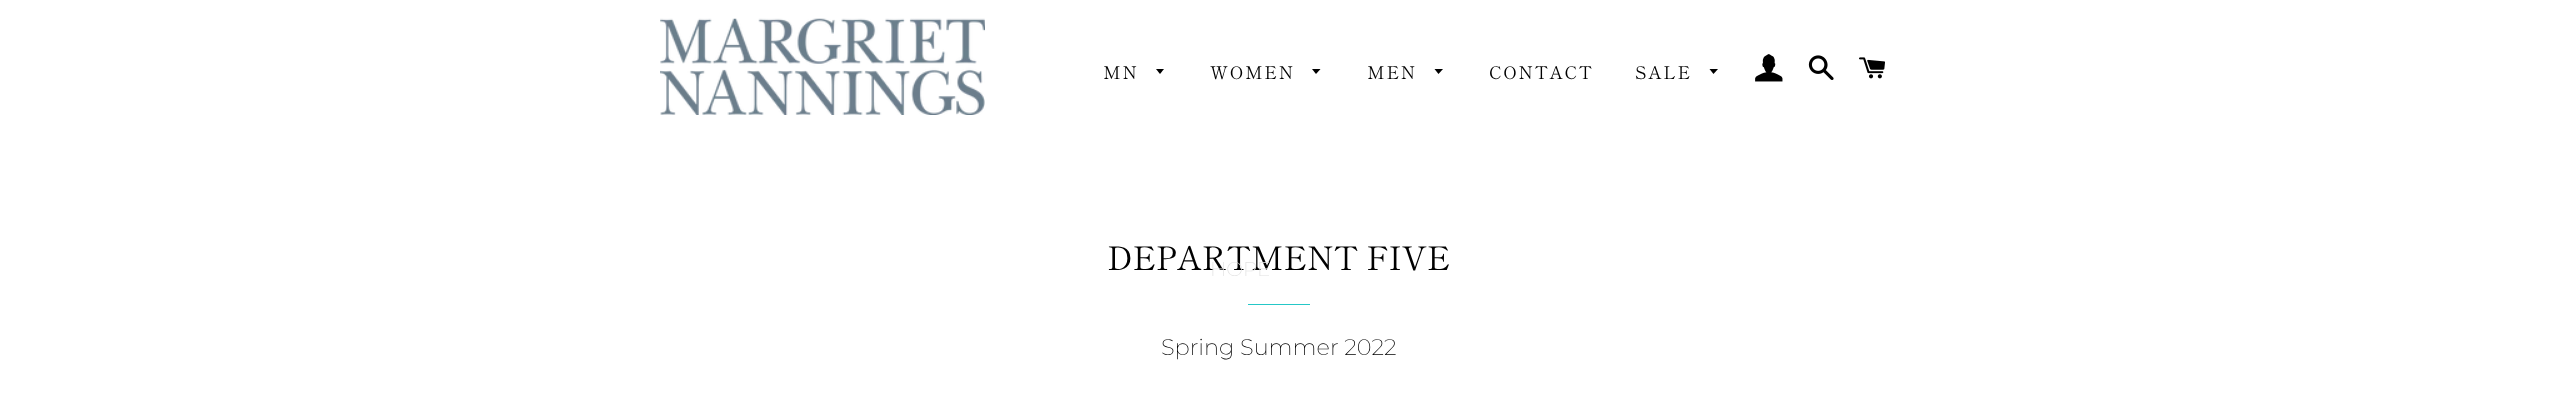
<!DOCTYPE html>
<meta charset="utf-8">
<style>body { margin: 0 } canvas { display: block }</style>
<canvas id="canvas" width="2557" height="404"></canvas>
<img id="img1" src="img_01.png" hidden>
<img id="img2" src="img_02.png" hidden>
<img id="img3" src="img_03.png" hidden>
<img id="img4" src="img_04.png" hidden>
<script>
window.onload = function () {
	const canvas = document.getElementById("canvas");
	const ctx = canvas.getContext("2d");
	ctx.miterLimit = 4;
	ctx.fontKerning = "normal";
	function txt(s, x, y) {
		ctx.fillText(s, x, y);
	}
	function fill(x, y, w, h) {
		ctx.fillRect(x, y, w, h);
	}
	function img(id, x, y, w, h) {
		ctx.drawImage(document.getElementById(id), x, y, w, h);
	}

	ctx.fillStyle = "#FFFFFF";
	fill(0, 0, 2557, 404);
	img("img1", 660, 18, 325, 97);
	ctx.fillStyle = "#000000";
	ctx.beginPath();
	ctx.moveTo(1156, 69);
	ctx.lineTo(1160, 74);
	ctx.lineTo(1164, 69);
	ctx.closePath();
	ctx.fill();
	ctx.beginPath();
	ctx.moveTo(1312, 69);
	ctx.lineTo(1316, 74);
	ctx.lineTo(1320.5, 69);
	ctx.closePath();
	ctx.fill();
	ctx.beginPath();
	ctx.moveTo(1434.5, 69);
	ctx.lineTo(1438.5, 74);
	ctx.lineTo(1443, 69);
	ctx.closePath();
	ctx.fill();
	ctx.beginPath();
	ctx.moveTo(1709.5, 69);
	ctx.lineTo(1713.5, 74);
	ctx.lineTo(1718, 69);
	ctx.closePath();
	ctx.fill();
	img("img2", 1755, 54, 28, 28);
	img("img3", 1808, 55, 26, 25);
	img("img4", 1859, 57, 26, 22);
	ctx.fillStyle = "#25C7C7";
	fill(1248, 304, 62, 1);
	ctx.letterSpacing = "1.75px";
	ctx.font = "17.5px Shippori Mincho";
	ctx.fillStyle = "#000000";
	txt("MN", 1103, 79);
	txt("WOMEN", 1210, 79);
	txt("MEN", 1367, 79);
	txt("CONTACT", 1489, 79);
	txt("SALE", 1635, 79);
	ctx.letterSpacing = "0px";
	ctx.font = "32.5px Shippori Mincho";
	txt("DEPARTMENT FIVE", 1107, 270);
	ctx.font = "200 20px Montserrat";
	ctx.fillStyle = "#E2E2E2";
	txt("HOPE", 1210, 276);
	ctx.font = "200 22.5px Montserrat";
	ctx.fillStyle = "#000000";
	txt("Spring Summer 2022", 1161, 355);
};
</script>
